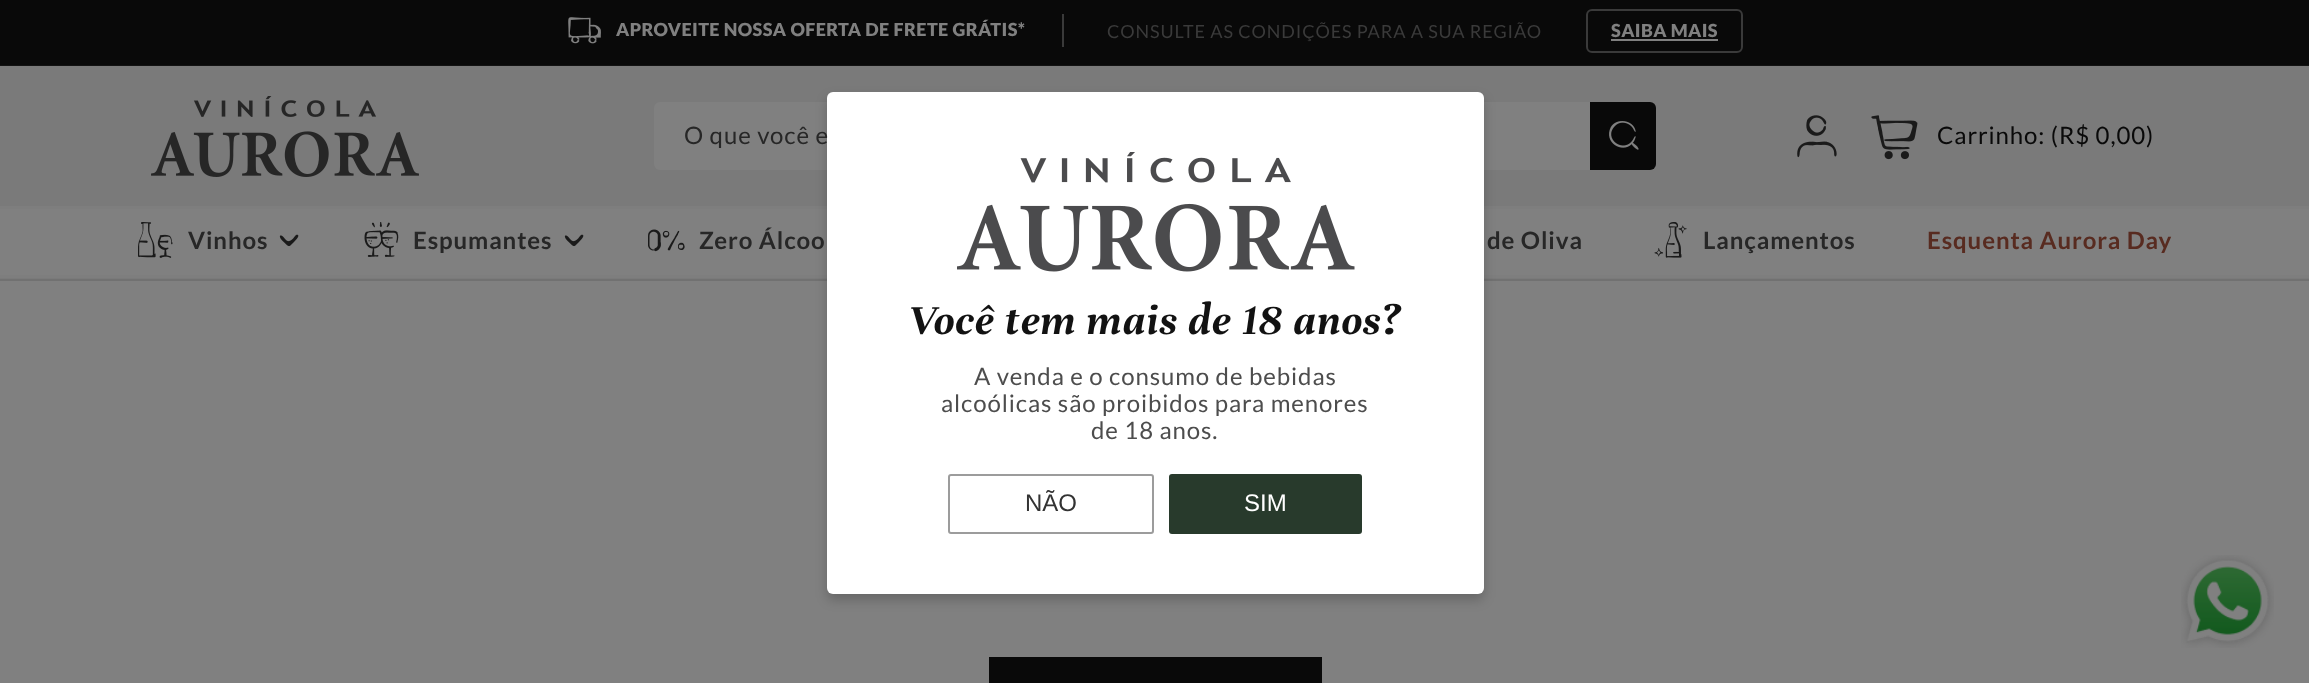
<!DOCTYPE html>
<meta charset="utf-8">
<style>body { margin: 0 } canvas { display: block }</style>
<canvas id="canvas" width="2309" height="683"></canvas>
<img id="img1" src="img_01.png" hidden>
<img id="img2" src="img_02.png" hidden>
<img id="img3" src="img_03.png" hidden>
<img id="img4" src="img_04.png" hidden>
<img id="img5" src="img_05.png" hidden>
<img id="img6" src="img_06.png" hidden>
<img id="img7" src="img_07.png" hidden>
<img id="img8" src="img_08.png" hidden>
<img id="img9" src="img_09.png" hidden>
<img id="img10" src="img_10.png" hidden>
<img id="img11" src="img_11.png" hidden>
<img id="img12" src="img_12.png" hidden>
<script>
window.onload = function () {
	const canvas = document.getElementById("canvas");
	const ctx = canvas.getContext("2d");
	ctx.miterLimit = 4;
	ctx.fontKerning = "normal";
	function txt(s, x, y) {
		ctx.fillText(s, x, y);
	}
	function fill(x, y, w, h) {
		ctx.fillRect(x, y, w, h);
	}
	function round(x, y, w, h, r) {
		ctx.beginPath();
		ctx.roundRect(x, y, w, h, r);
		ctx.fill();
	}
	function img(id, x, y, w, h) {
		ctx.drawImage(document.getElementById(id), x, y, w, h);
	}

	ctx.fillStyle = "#808080";
	fill(0, 0, 2309, 683);
	ctx.fillStyle = "#090909";
	fill(0, 0, 2309, 65);
	ctx.fillStyle = "#131313";
	fill(0, 65, 2309, 1);
	img("img1", 568, 17, 33, 27);
	ctx.fillStyle = "#3A3A3A";
	fill(1062, 14, 2, 33);
	ctx.beginPath();
	ctx.roundRect(1587, 10, 155, 42, 5);
	ctx.strokeStyle = "#3A3A3A";
	ctx.lineWidth = 2;
	ctx.stroke();
	ctx.fillStyle = "#808080";
	fill(1611, 39, 107, 2);
	ctx.fillStyle = "#7A7A7A";
	fill(0, 66, 2309, 213);
	ctx.fillStyle = "#717171";
	fill(0, 279, 2309, 2);
	img("img2", 151, 96, 268, 81);
	ctx.fillStyle = "#808080";
	round(654, 102, 1002, 68, 6);
	ctx.fillStyle = "#090909";
	ctx.beginPath();
	ctx.roundRect(1590, 102, 66, 68, [0, 6, 6, 0]);
	ctx.fill();
	img("img3", 1609, 121, 30, 29);
	img("img4", 1797, 115, 40, 43);
	img("img5", 1871, 115, 47, 45);
	ctx.fillStyle = "#808080";
	fill(0, 209, 2309, 66);
	ctx.fillStyle = "#7E7E7E";
	fill(0, 206, 2309, 3);
	fill(0, 275, 2309, 3);
	img("img6", 138, 222, 35, 36);
	img("img7", 279, 234, 20, 13);
	img("img8", 364, 222, 35, 35);
	img("img7", 564, 234, 20, 13);
	img("img9", 648, 229, 37, 23);
	img("img10", 1654, 222, 33, 36);
	ctx.fillStyle = "rgba(0, 0, 0, 0.2)";
	ctx.filter = "blur(6px)";
	ctx.beginPath();
	ctx.roundRect(827, 98, 657, 502, 6);
	ctx.fill();
	ctx.filter = "none";
	ctx.fillStyle = "#FFFFFF";
	round(827, 92, 657, 502, 6);
	img("img11", 957, 152, 398, 120);
	ctx.beginPath();
	ctx.roundRect(949, 475, 204, 58, 2);
	ctx.strokeStyle = "#9C9C9C";
	ctx.stroke();
	ctx.fillStyle = "#283A2C";
	round(1169, 474, 193, 60, 3);
	img("img12", 2181, 555, 93, 93);
	ctx.fillStyle = "#090909";
	fill(989, 657, 333, 26);
	ctx.letterSpacing = "0.4px";
	ctx.font = "900 18px Lato";
	ctx.fillStyle = "#808080";
	txt("APROVEITE NOSSA OFERTA DE FRETE GRÁTIS*", 616, 36);
	ctx.letterSpacing = "0.9px";
	ctx.font = "18px Lato";
	ctx.fillStyle = "#3A3A3A";
	txt("CONSULTE AS CONDIÇÕES PARA A SUA REGIÃO", 1107, 38);
	ctx.letterSpacing = "0.4px";
	ctx.font = "900 18px Lato";
	ctx.fillStyle = "#808080";
	txt("SAIBA MAIS", 1611, 37);
	ctx.letterSpacing = "0.9px";
	ctx.font = "24px Lato";
	ctx.fillStyle = "#272727";
	txt("O que você e", 684, 144);
	ctx.fillStyle = "#090909";
	txt("Carrinho: (R$ 0,00)", 1937, 144);
	ctx.font = "bold 24px Lato";
	ctx.fillStyle = "#272727";
	txt("Vinhos", 188, 249);
	txt("Espumantes", 413, 249);
	txt("Zero Álcoo", 699, 249);
	txt("de Oliva", 1487, 249);
	txt("Lançamentos", 1703, 249);
	ctx.fillStyle = "#582B20";
	txt("Esquenta Aurora Day", 1927, 249);
	ctx.font = "italic bold 45px Unna";
	ctx.fillStyle = "#121212";
	txt("Você tem mais de 18 anos?", 909, 334);
	ctx.font = "24px Lato";
	ctx.fillStyle = "#4D4D4D";
	txt("A venda e o consumo de bebidas", 974, 385);
	txt("alcoólicas são proibidos para menores", 941, 412);
	txt("de 18 anos.", 1091, 439);
	ctx.letterSpacing = "0px";
	ctx.font = "24px Liberation Sans";
	ctx.fillStyle = "#333333";
	txt("NÃO", 1025, 511);
	ctx.fillStyle = "#FFFFFF";
	txt("SIM", 1244, 511);
};
</script>
